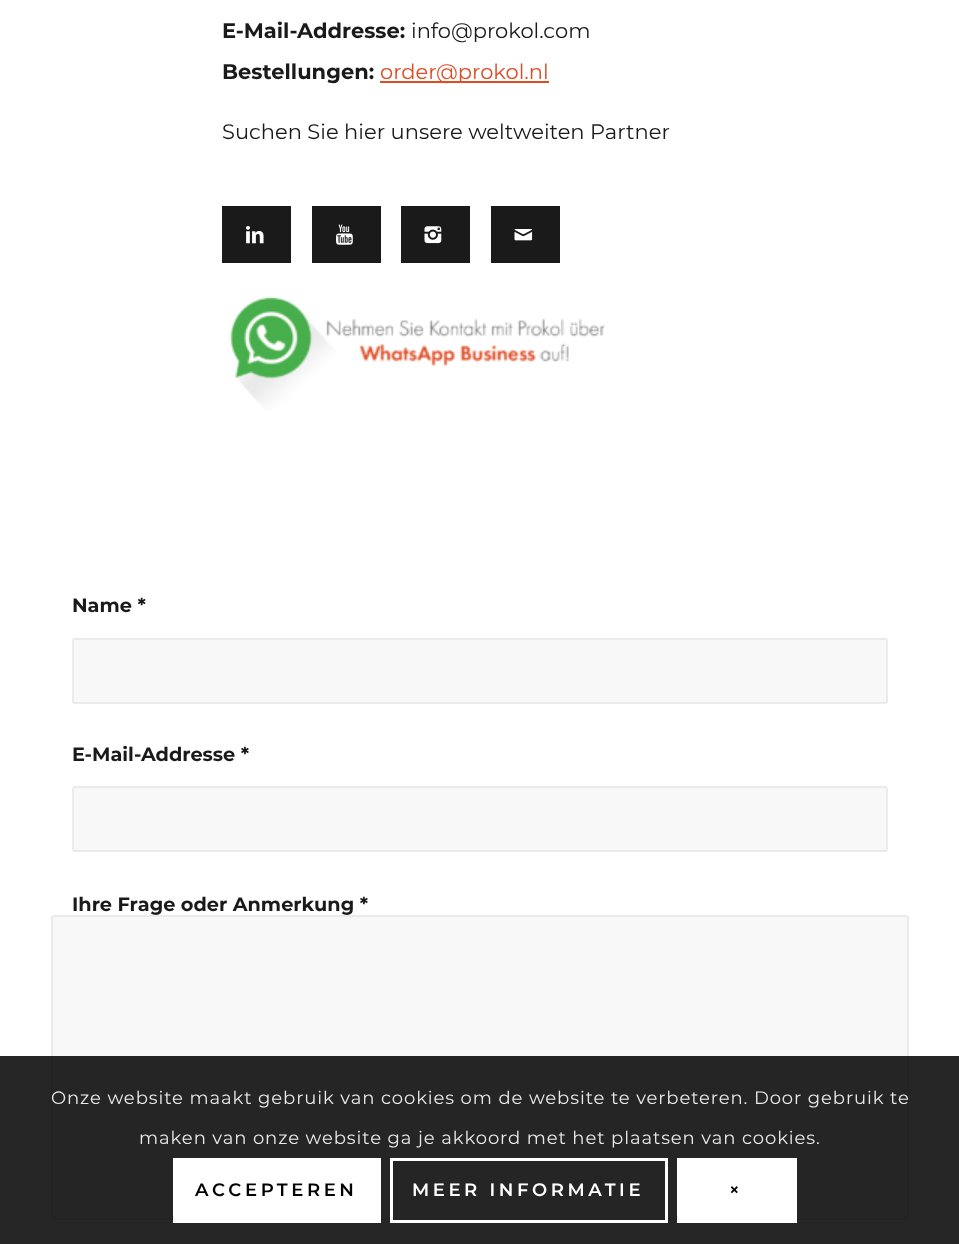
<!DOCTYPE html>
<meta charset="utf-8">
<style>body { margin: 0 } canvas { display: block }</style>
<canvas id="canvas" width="959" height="1244"></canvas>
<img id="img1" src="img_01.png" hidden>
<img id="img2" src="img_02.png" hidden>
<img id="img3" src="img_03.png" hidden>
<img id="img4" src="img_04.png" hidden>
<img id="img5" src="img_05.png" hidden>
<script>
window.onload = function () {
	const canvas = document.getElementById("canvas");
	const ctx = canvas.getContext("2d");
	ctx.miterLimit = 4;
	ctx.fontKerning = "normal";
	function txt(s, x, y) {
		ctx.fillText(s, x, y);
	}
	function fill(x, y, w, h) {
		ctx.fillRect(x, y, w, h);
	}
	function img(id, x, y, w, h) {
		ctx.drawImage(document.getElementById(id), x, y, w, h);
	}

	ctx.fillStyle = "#FFFFFF";
	fill(0, 0, 959, 1244);
	ctx.fillStyle = "#DF4C23";
	fill(380, 81, 169, 2);
	ctx.fillStyle = "#1A1A1A";
	fill(222, 206, 69, 57);
	img("img1", 246, 226, 18, 18);
	fill(312, 206, 69, 57);
	img("img2", 336, 224, 17, 21);
	fill(401, 206, 69, 57);
	img("img3", 424, 226, 18, 18);
	fill(491, 206, 69, 57);
	img("img4", 514, 229, 19, 12);
	img("img5", 230, 296, 375, 114);
	ctx.fillStyle = "#F8F8F8";
	ctx.beginPath();
	ctx.roundRect(73, 639, 814, 64, 2);
	ctx.fill();
	ctx.strokeStyle = "#EBEBEB";
	ctx.lineWidth = 2;
	ctx.stroke();
	ctx.beginPath();
	ctx.roundRect(73, 787, 814, 64, 2);
	ctx.fill();
	ctx.stroke();
	ctx.beginPath();
	ctx.roundRect(52, 916, 856, 303, 2);
	ctx.fill();
	ctx.stroke();
	ctx.fillStyle = "rgba(0, 0, 0, 0.85)";
	fill(0, 1056, 959, 188);
	ctx.fillStyle = "#FFFFFF";
	fill(173, 1158, 208, 65);
	ctx.strokeStyle = "#FFFFFF";
	ctx.lineWidth = 3;
	ctx.strokeRect(391.5, 1159.5, 275, 62);
	fill(677, 1158, 120, 65);
	ctx.font = "bold 21px Montserrat";
	ctx.fillStyle = "#1A1A1A";
	txt("E-Mail-Addresse:", 222, 38);
	ctx.font = "21px Montserrat";
	txt("info@prokol.com", 411, 38);
	ctx.font = "bold 21px Montserrat";
	txt("Bestellungen:", 222, 79);
	ctx.font = "21px Montserrat";
	ctx.fillStyle = "#DF4C23";
	txt("order@prokol.nl", 380, 79);
	ctx.fillStyle = "#1A1A1A";
	txt("Suchen Sie hier unsere weltweiten Partner", 222, 139);
	ctx.font = "bold 19.3px Montserrat";
	txt("Name *", 72, 612);
	txt("E-Mail-Addresse *", 72, 761);
	txt("Ihre Frage oder Anmerkung *", 72, 911);
	ctx.letterSpacing = "0.9px";
	ctx.font = "18px Montserrat";
	ctx.fillStyle = "#E9E9E9";
	txt("Onze website maakt gebruik van cookies om de website te verbeteren. Door gebruik te", 51, 1104);
	txt("maken van onze website ga je akkoord met het plaatsen van cookies.", 139, 1144);
	ctx.letterSpacing = "3.6px";
	ctx.font = "600 18px Montserrat";
	ctx.fillStyle = "#000000";
	txt("ACCEPTEREN", 195, 1196);
	ctx.fillStyle = "#FFFFFF";
	txt("MEER INFORMATIE", 412, 1196);
	ctx.fillStyle = "#000000";
	txt("×", 729, 1196);
};
</script>
